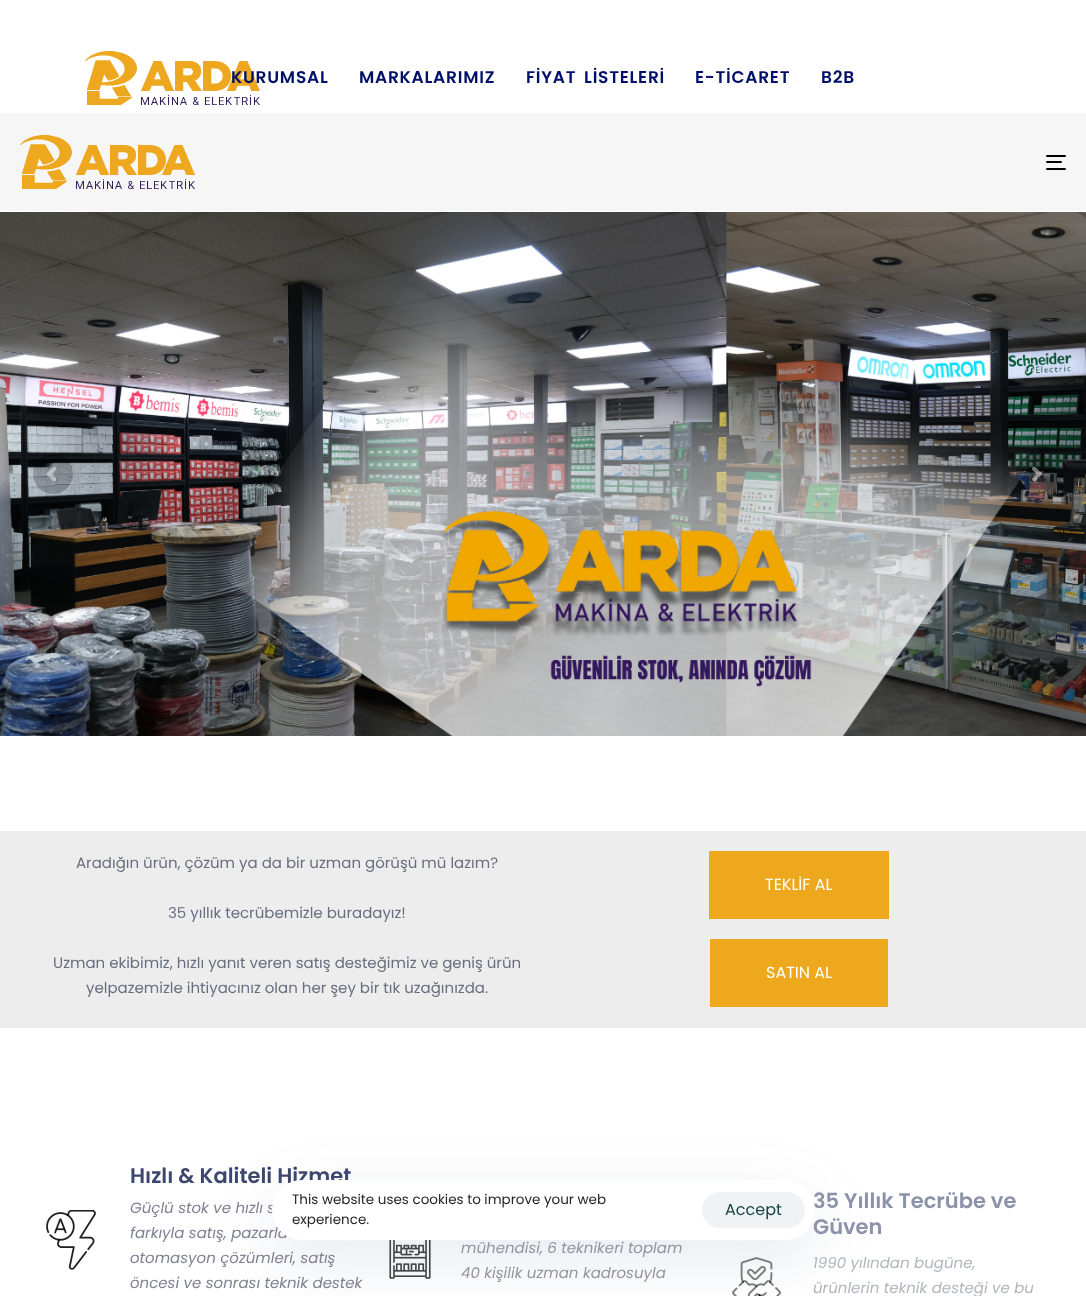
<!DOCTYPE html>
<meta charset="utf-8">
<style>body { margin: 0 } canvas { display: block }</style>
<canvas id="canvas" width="1086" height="1296"></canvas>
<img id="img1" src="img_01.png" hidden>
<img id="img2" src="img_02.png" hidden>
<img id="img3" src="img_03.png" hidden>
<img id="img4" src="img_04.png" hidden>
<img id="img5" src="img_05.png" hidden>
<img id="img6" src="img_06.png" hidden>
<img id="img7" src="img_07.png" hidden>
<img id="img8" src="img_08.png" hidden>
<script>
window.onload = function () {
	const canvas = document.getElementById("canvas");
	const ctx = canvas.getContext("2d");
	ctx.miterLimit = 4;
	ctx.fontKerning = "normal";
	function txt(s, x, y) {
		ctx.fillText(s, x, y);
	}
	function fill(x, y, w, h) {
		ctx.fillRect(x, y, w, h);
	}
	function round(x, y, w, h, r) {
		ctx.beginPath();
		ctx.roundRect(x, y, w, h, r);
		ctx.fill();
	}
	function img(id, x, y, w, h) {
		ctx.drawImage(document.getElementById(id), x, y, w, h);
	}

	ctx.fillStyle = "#FFFFFF";
	fill(0, 0, 1086, 1296);
	img("img1", 85, 51, 175, 54);
	ctx.fillStyle = "#F6F6F6";
	fill(0, 113, 1086, 98);
	img("img2", 20, 135, 175, 54);
	ctx.fillStyle = "#000000";
	round(1046, 155, 20, 2, 1);
	round(1046, 161, 16, 2, 1);
	round(1046, 168, 20, 2, 1);
	img("img3", 0, 212, 1086, 524);
	ctx.fillStyle = "rgba(0, 0, 0, 0.22)";
	ctx.beginPath();
	ctx.arc(53, 474, 20, 0, Math.PI * 2);
	ctx.fill();
	img("img4", 46, 466, 11, 16);
	ctx.beginPath();
	ctx.arc(1036, 474, 20, 0, Math.PI * 2);
	ctx.fill();
	img("img5", 1032, 466, 10, 16);
	ctx.fillStyle = "#EDEDED";
	fill(0, 831, 1086, 197);
	ctx.fillStyle = "#EDA81E";
	fill(709, 851, 180, 68);
	fill(710, 939, 178, 68);
	img("img6", 46, 1210, 50, 60);
	img("img7", 389, 1240, 42, 39);
	img("img8", 732, 1257, 49, 39);
	ctx.fillStyle = "rgba(92, 107, 149, 0.15)";
	ctx.filter = "blur(30px)";
	ctx.beginPath();
	ctx.roundRect(272, 1200, 543, 60, 30);
	ctx.fill();
	ctx.filter = "none";
	ctx.letterSpacing = "0.75px";
	ctx.font = "600 17px Poppins";
	ctx.fillStyle = "#001068";
	txt("KURUMSAL", 231, 83);
	txt("MARKALARIMIZ", 359, 83);
	ctx.wordSpacing = "3px";
	txt("FİYAT LİSTELERİ", 526, 83);
	ctx.wordSpacing = "0px";
	txt("E-TİCARET", 695, 83);
	txt("B2B", 821, 83);
	ctx.letterSpacing = "0px";
	ctx.font = "15px Poppins";
	ctx.fillStyle = "#696F80";
	txt("Aradığın ürün, çözüm ya da bir uzman görüşü mü lazım?", 76, 868);
	txt("35 yıllık tecrübemizle buradayız!", 168, 918);
	txt("Uzman ekibimiz, hızlı yanıt veren satış desteğimiz ve geniş ürün", 53, 968);
	txt("yelpazemizle ihtiyacınız olan her şey bir tık uzağınızda.", 86, 993);
	ctx.font = "16px Poppins";
	ctx.fillStyle = "#FFFFFF";
	txt("TEKLİF AL", 765, 890);
	txt("SATIN AL", 766, 978);
	ctx.font = "600 21px Poppins";
	ctx.fillStyle = "#3C466E";
	txt("Hızlı & Kaliteli Hizmet", 130, 1183);
	ctx.font = "italic 15px Poppins";
	ctx.fillStyle = "#7D8291";
	txt("Güçlü stok ve hızlı s", 130, 1213);
	txt("farkıyla satış, pazarla", 130, 1238);
	txt("otomasyon çözümleri, satış", 130, 1263);
	txt("öncesi ve sonrası teknik destek", 130, 1288);
	ctx.fillStyle = "#9095A1";
	txt("mühendisi, 6 teknikeri toplam", 461, 1253);
	txt("40 kişilik uzman kadrosuyla", 461, 1278);
	ctx.font = "600 21px Poppins";
	ctx.fillStyle = "#8C92A9";
	txt("35 Yıllık Tecrübe ve", 813, 1208);
	txt("Güven", 813, 1234);
	ctx.font = "italic 15px Poppins";
	ctx.fillStyle = "#B2B5BE";
	txt("1990 yılından bugüne,", 813, 1268);
	txt("ürünlerin teknik desteği ve bu", 813, 1293);
	ctx.fillStyle = "#FFFFFF";
	round(272, 1180, 543, 60, 30);
	ctx.font = "13.5px Poppins";
	ctx.fillStyle = "#242424";
	txt("This website uses cookies to improve your web", 292, 1204);
	txt("experience.", 292, 1224);
	ctx.fillStyle = "#EFF3F5";
	round(702, 1192, 103, 36, 18);
	ctx.font = "16px Poppins";
	ctx.fillStyle = "#184341";
	txt("Accept", 725, 1215);
};
</script>
